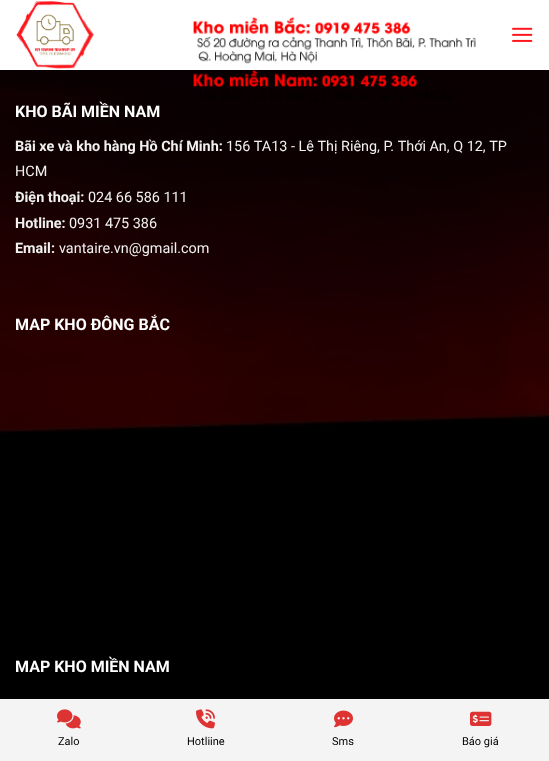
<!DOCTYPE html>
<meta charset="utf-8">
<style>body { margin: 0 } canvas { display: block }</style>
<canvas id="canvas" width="549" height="761"></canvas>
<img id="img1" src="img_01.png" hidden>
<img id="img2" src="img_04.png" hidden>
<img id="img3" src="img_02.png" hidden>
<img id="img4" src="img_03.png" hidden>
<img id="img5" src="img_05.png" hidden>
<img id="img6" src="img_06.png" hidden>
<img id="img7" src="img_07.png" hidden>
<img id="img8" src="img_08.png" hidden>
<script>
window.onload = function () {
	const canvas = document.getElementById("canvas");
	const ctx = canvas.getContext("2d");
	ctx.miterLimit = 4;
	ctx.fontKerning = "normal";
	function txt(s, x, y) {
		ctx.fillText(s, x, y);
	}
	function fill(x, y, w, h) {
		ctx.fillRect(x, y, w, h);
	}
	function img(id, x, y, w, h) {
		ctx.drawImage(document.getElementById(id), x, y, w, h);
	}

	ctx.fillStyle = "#FFFFFF";
	fill(0, 0, 549, 761);
	img("img1", 16, 0, 78, 69);
	img("img2", 0, 70, 549, 629);
	img("img3", 193, 17, 283, 85);
	img("img4", 512, 27, 21, 15);
	ctx.fillStyle = "rgba(20, 20, 20, 0.1)";
	fill(253, 70, 2, 1);
	ctx.fillStyle = "#F4F4F4";
	fill(0, 699, 549, 62);
	img("img5", 57, 709, 24, 20);
	img("img6", 196, 709, 19, 20);
	img("img7", 334, 710, 19, 18);
	img("img8", 470, 711, 22, 15);
	ctx.font = "bold 16px Roboto";
	ctx.fillStyle = "#FFFFFF";
	txt("KHO BÃI MIỀN NAM", 15, 117);
	ctx.font = "bold 14.4px Roboto";
	ctx.fillStyle = "#F1F1F1";
	txt("Bãi xe và kho hàng Hồ Chí Minh:", 15, 151);
	ctx.font = "14.4px Roboto";
	txt("156 TA13 - Lê Thị Riêng, P. Thới An, Q 12, TP", 226, 151);
	txt("HCM", 15, 176);
	ctx.font = "bold 14.4px Roboto";
	txt("Điện thoại:", 15, 202);
	ctx.font = "14.4px Roboto";
	txt("024 66 586 111", 88, 202);
	ctx.font = "bold 14.4px Roboto";
	txt("Hotline:", 15, 228);
	ctx.font = "14.4px Roboto";
	txt("0931 475 386", 69, 228);
	ctx.font = "bold 14.4px Roboto";
	txt("Email:", 15, 253);
	ctx.font = "14.4px Roboto";
	txt("vantaire.vn@gmail.com", 59, 253);
	ctx.font = "bold 16px Roboto";
	ctx.fillStyle = "#FFFFFF";
	txt("MAP KHO ĐÔNG BẮC", 15, 330);
	txt("MAP KHO MIỀN NAM", 15, 672);
	ctx.font = "11px Roboto";
	ctx.fillStyle = "#000000";
	txt("Zalo", 58, 745);
	txt("Hotliine", 187, 745);
	txt("Sms", 332, 745);
	txt("Báo giá", 462, 745);
};
</script>
